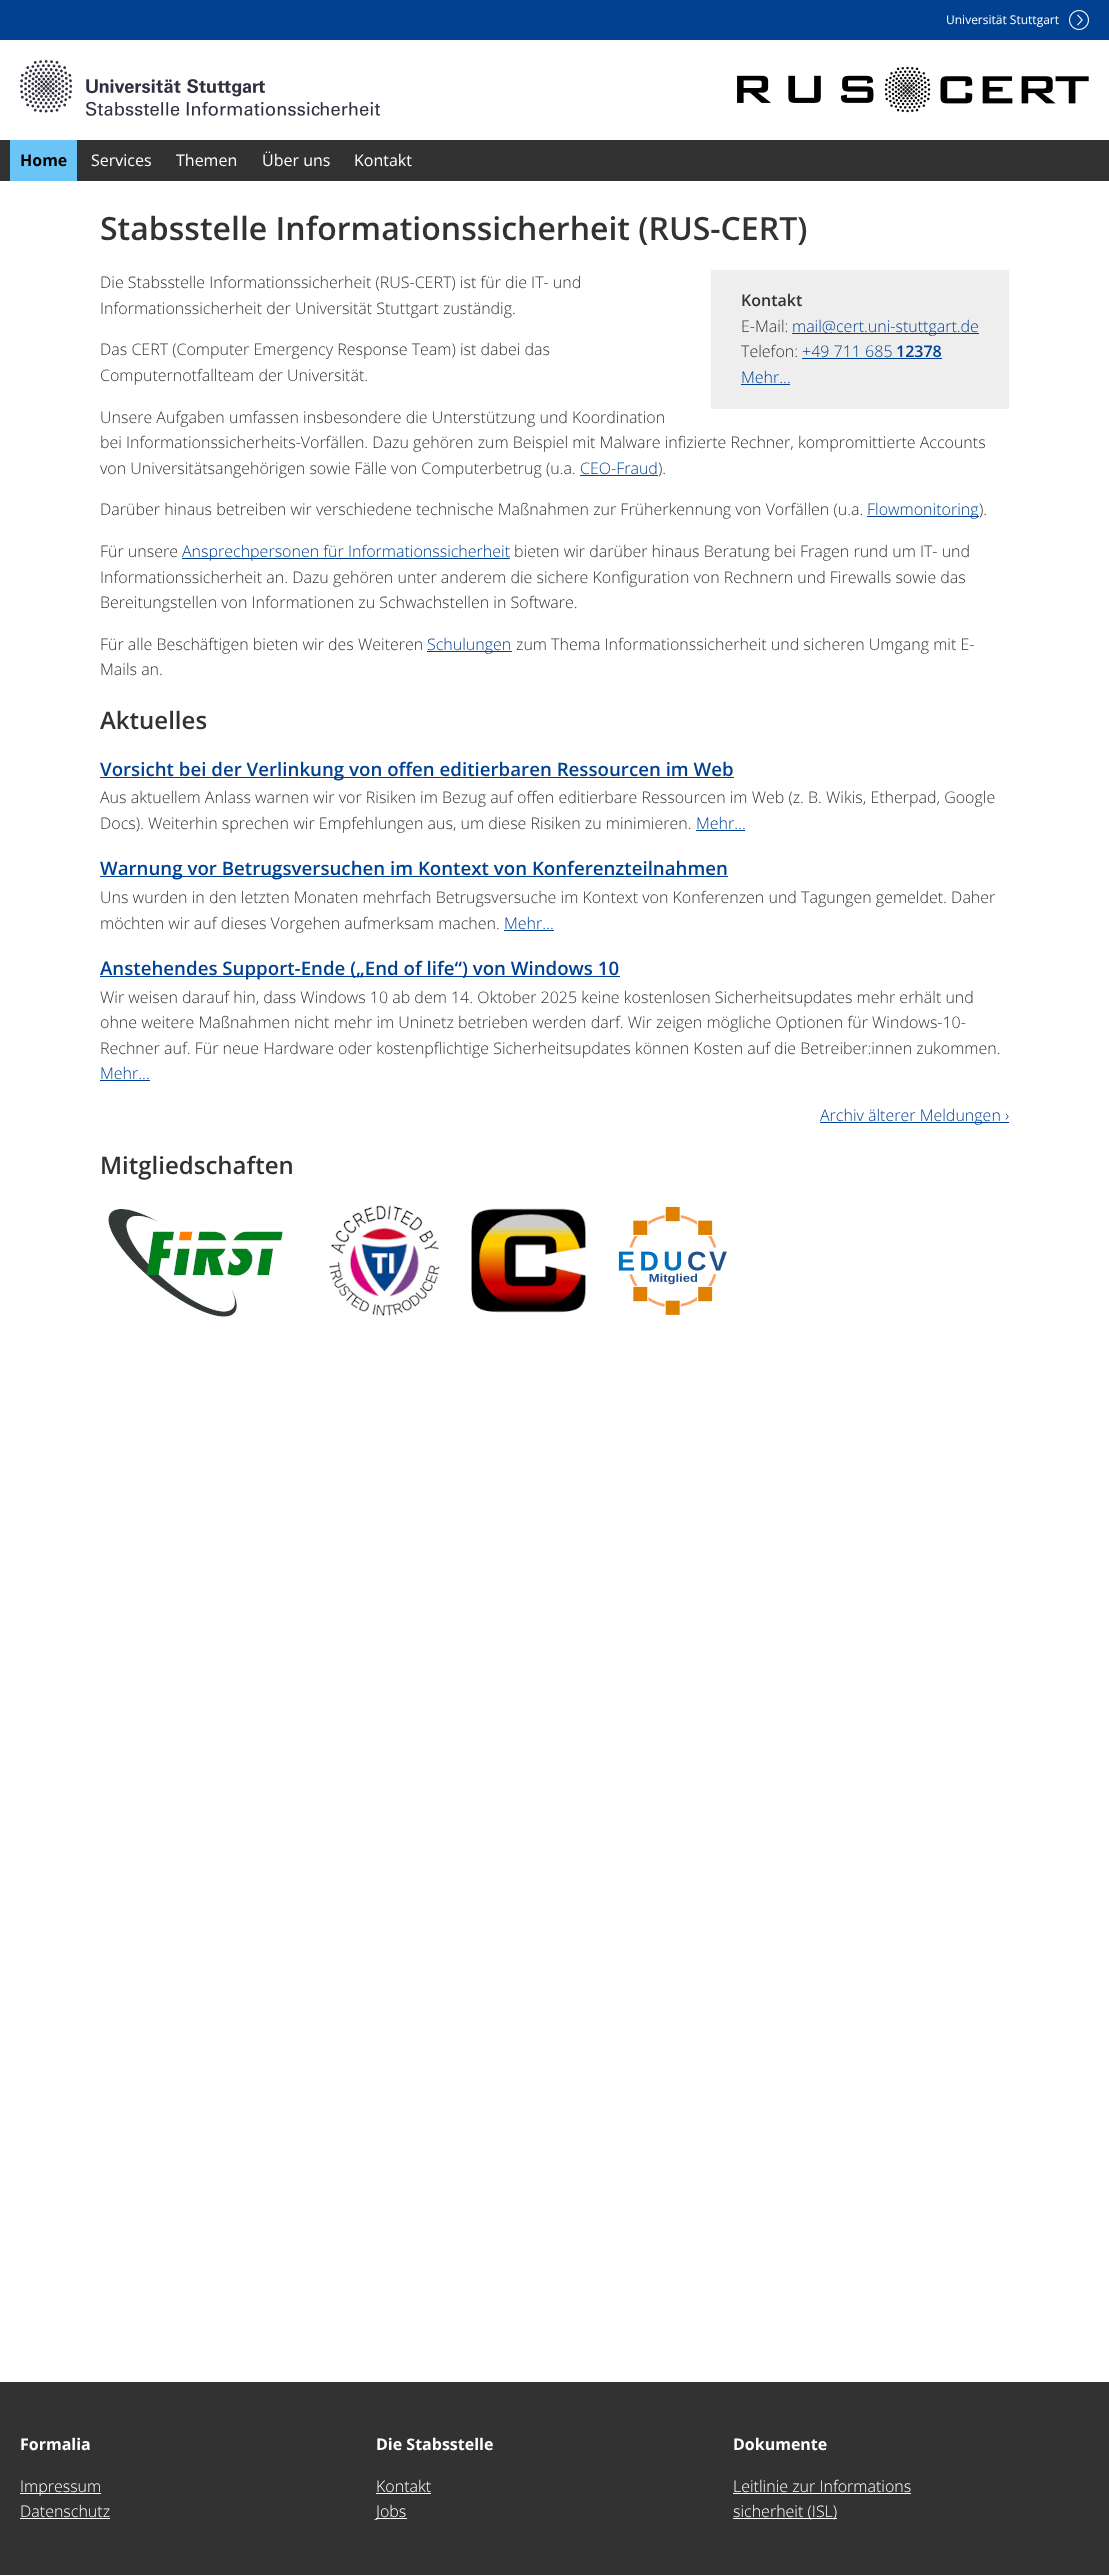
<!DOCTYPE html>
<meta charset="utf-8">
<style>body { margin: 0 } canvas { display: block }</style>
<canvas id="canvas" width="1109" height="2575"></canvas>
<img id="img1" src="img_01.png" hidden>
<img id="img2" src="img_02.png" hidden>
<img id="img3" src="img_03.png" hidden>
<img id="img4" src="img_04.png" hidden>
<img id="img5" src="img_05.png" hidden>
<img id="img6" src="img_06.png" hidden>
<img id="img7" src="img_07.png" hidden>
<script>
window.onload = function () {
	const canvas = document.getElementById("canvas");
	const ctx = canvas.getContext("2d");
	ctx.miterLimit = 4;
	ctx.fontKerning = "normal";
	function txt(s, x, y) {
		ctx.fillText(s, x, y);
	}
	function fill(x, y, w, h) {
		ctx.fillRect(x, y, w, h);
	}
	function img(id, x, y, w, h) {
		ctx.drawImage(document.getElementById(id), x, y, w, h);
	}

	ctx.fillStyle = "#FFFFFF";
	fill(0, 0, 1109, 2575);
	ctx.fillStyle = "#004191";
	fill(0, 0, 1109, 40);
	img("img1", 1069, 10, 20, 20);
	img("img2", 20, 60, 360, 56);
	img("img3", 737, 66, 352, 47);
	ctx.fillStyle = "#323232";
	fill(0, 140, 1109, 41);
	ctx.fillStyle = "#6AC5F6";
	fill(10, 140, 67, 41);
	ctx.fillStyle = "#004191";
	fill(580, 475, 78, 1);
	fill(867, 516, 112, 1);
	fill(182, 558, 328, 1);
	fill(427, 651, 85, 1);
	ctx.fillStyle = "#EEEEEE";
	fill(711, 270, 298, 139);
	ctx.fillStyle = "#004191";
	fill(792, 333, 187, 1);
	fill(802, 358, 140, 1);
	fill(741, 384, 49, 1);
	fill(100, 777, 634, 1);
	fill(696, 830, 49, 1);
	fill(100, 876, 628, 1);
	fill(504, 930, 50, 1);
	fill(100, 976, 520, 1);
	fill(100, 1080, 50, 1);
	fill(820, 1122, 189, 1);
	img("img4", 108, 1209, 175, 108);
	img("img5", 329, 1205, 111, 111);
	img("img6", 471, 1208, 115, 105);
	img("img7", 618, 1206, 109, 109);
	ctx.fillStyle = "#323232";
	fill(0, 2382, 1109, 193);
	ctx.fillStyle = "#FFFFFF";
	fill(20, 2493, 81, 1);
	fill(20, 2518, 90, 1);
	fill(376, 2493, 55, 1);
	fill(376, 2518, 31, 1);
	fill(733, 2493, 178, 1);
	fill(733, 2518, 104, 1);
	ctx.font = "12px Open Sans";
	txt("Universität Stuttgart", 946, 24);
	ctx.font = "bold 16px Open Sans";
	ctx.fillStyle = "#000000";
	txt("Home", 20, 166);
	ctx.font = "16px Open Sans";
	ctx.fillStyle = "#FFFFFF";
	txt("Services", 91, 166);
	txt("Themen", 176, 166);
	txt("Über uns", 262, 166);
	txt("Kontakt", 354, 166);
	ctx.font = "600 32px Open Sans";
	ctx.fillStyle = "#323232";
	txt("Stabsstelle Informationssicherheit (RUS-CERT)", 100, 240);
	ctx.font = "300 16px Open Sans";
	txt("Die Stabsstelle Informationssicherheit (RUS-CERT) ist für die IT- und", 100, 288);
	txt("Informationssicherheit der Universität Stuttgart zuständig.", 100, 314);
	txt("Das CERT (Computer Emergency Response Team) ist dabei das", 100, 355);
	txt("Computernotfallteam der Universität.", 100, 381);
	txt("Unsere Aufgaben umfassen insbesondere die Unterstützung und Koordination", 100, 423);
	txt("bei Informationssicherheits-Vorfällen. Dazu gehören zum Beispiel mit Malware infizierte Rechner, kompromittierte Accounts", 100, 448);
	txt("von Universitätsangehörigen sowie Fälle von Computerbetrug (u.a.", 100, 474);
	ctx.fillStyle = "#004191";
	txt("CEO-Fraud", 580, 474);
	ctx.fillStyle = "#323232";
	txt(").", 658, 474);
	txt("Darüber hinaus betreiben wir verschiedene technische Maßnahmen zur Früherkennung von Vorfällen (u.a.", 100, 515);
	ctx.fillStyle = "#004191";
	txt("Flowmonitoring", 867, 515);
	ctx.fillStyle = "#323232";
	txt(").", 979, 515);
	txt("Für unsere", 100, 557);
	ctx.fillStyle = "#004191";
	txt("Ansprechpersonen für Informationssicherheit", 182, 557);
	ctx.fillStyle = "#323232";
	txt("bieten wir darüber hinaus Beratung bei Fragen rund um IT- und", 514, 557);
	txt("Informationssicherheit an. Dazu gehören unter anderem die sichere Konfiguration von Rechnern und Firewalls sowie das", 100, 583);
	txt("Bereitungstellen von Informationen zu Schwachstellen in Software.", 100, 608);
	txt("Für alle Beschäftigen bieten wir des Weiteren", 100, 650);
	ctx.fillStyle = "#004191";
	txt("Schulungen", 427, 650);
	ctx.fillStyle = "#323232";
	txt("zum Thema Informationssicherheit und sicheren Umgang mit E-", 516, 650);
	txt("Mails an.", 100, 675);
	ctx.font = "600 16px Open Sans";
	txt("Kontakt", 741, 306);
	ctx.font = "300 16px Open Sans";
	txt("E-Mail:", 741, 332);
	ctx.fillStyle = "#004191";
	txt("mail@cert.uni-stuttgart.de", 792, 332);
	ctx.fillStyle = "#323232";
	txt("Telefon:", 741, 357);
	ctx.fillStyle = "#004191";
	txt("+49 711 685", 802, 357);
	ctx.font = "600 16px Open Sans";
	txt("12378", 896, 357);
	ctx.font = "300 16px Open Sans";
	txt("Mehr...", 741, 383);
	ctx.font = "600 24px Open Sans";
	ctx.fillStyle = "#323232";
	txt("Aktuelles", 100, 729);
	ctx.font = "600 18.7px Open Sans";
	ctx.fillStyle = "#004191";
	txt("Vorsicht bei der Verlinkung von offen editierbaren Ressourcen im Web", 100, 776);
	ctx.font = "300 16px Open Sans";
	ctx.fillStyle = "#323232";
	txt("Aus aktuellem Anlass warnen wir vor Risiken im Bezug auf offen editierbare Ressourcen im Web (z. B. Wikis, Etherpad, Google", 100, 803);
	txt("Docs). Weiterhin sprechen wir Empfehlungen aus, um diese Risiken zu minimieren.", 100, 829);
	ctx.fillStyle = "#004191";
	txt("Mehr...", 696, 829);
	ctx.font = "600 18.7px Open Sans";
	txt("Warnung vor Betrugsversuchen im Kontext von Konferenzteilnahmen", 100, 875);
	ctx.font = "300 16px Open Sans";
	ctx.fillStyle = "#323232";
	txt("Uns wurden in den letzten Monaten mehrfach Betrugsversuche im Kontext von Konferenzen und Tagungen gemeldet. Daher", 100, 903);
	txt("möchten wir auf dieses Vorgehen aufmerksam machen.", 100, 929);
	ctx.fillStyle = "#004191";
	txt("Mehr...", 504, 929);
	ctx.font = "600 18.7px Open Sans";
	txt("Anstehendes Support-Ende („End of life“) von Windows 10", 100, 975);
	ctx.font = "300 16px Open Sans";
	ctx.fillStyle = "#323232";
	txt("Wir weisen darauf hin, dass Windows 10 ab dem 14. Oktober 2025 keine kostenlosen Sicherheitsupdates mehr erhält und", 100, 1003);
	txt("ohne weitere Maßnahmen nicht mehr im Uninetz betrieben werden darf. Wir zeigen mögliche Optionen für Windows-10-", 100, 1028);
	txt("Rechner auf. Für neue Hardware oder kostenpflichtige Sicherheitsupdates können Kosten auf die Betreiber:innen zukommen.", 100, 1054);
	ctx.fillStyle = "#004191";
	txt("Mehr...", 100, 1079);
	txt("Archiv älterer Meldungen ›", 820, 1121);
	ctx.font = "600 24px Open Sans";
	ctx.fillStyle = "#323232";
	txt("Mitgliedschaften", 100, 1174);
	ctx.font = "bold 16px Open Sans";
	ctx.fillStyle = "#FFFFFF";
	txt("Formalia", 20, 2450);
	ctx.font = "300 16px Open Sans";
	txt("Impressum", 20, 2492);
	txt("Datenschutz", 20, 2517);
	ctx.font = "bold 16px Open Sans";
	txt("Die Stabsstelle", 376, 2450);
	ctx.font = "300 16px Open Sans";
	txt("Kontakt", 376, 2492);
	txt("Jobs", 376, 2517);
	ctx.font = "bold 16px Open Sans";
	txt("Dokumente", 733, 2450);
	ctx.font = "300 16px Open Sans";
	txt("Leitlinie zur Informations", 733, 2492);
	txt("sicherheit (ISL)", 733, 2517);
};
</script>
